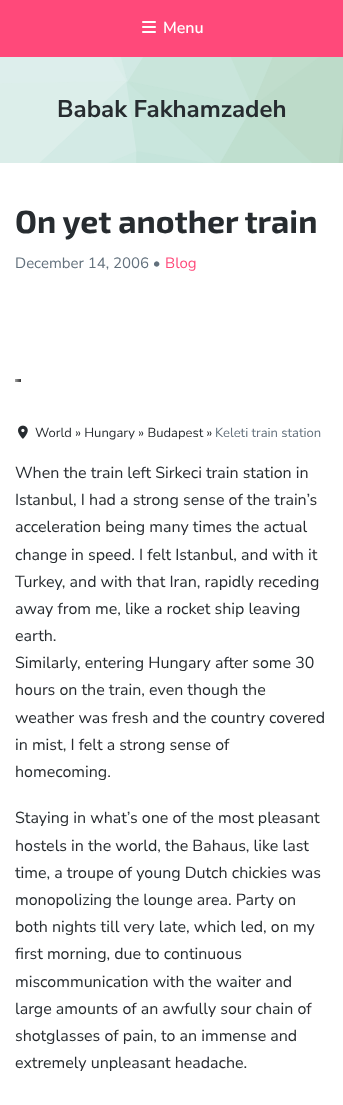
<!DOCTYPE html>
<meta charset="utf-8">
<style>body { margin: 0 } canvas { display: block }</style>
<canvas id="canvas" width="343" height="1105"></canvas>
<img id="img1" src="img_01.png" hidden>
<img id="img2" src="img_02.png" hidden>
<img id="img3" src="img_03.png" hidden>
<script>
window.onload = function () {
	const canvas = document.getElementById("canvas");
	const ctx = canvas.getContext("2d");
	ctx.miterLimit = 4;
	ctx.fontKerning = "normal";
	function txt(s, x, y) {
		ctx.fillText(s, x, y);
	}
	function fill(x, y, w, h) {
		ctx.fillRect(x, y, w, h);
	}
	function img(id, x, y, w, h) {
		ctx.drawImage(document.getElementById(id), x, y, w, h);
	}
	let gradient;

	ctx.fillStyle = "#FFFFFF";
	fill(0, 0, 343, 1105);
	ctx.fillStyle = "#F2F2F2";
	fill(0, 57, 343, 106);
	ctx.fillStyle = "#FF497A";
	fill(0, 0, 343, 57);
	img("img1", 142, 21, 14, 12);
	img("img2", 0, 57, 343, 106);
	gradient = ctx.createLinearGradient(15, 381, 21, 381);
	gradient.addColorStop(0, "#A6A6A6");
	gradient.addColorStop(1, "#333333");
	ctx.fillStyle = gradient;
	fill(15, 379, 6, 3);
	img("img3", 18, 425, 10, 14);
	ctx.font = "600 16px Nunito Sans";
	ctx.fillStyle = "#FFFFFF";
	txt("Menu", 163, 33);
	ctx.font = "bold 24px Nunito Sans";
	ctx.fillStyle = "#272C30";
	txt("Babak Fakhamzadeh", 57, 117);
	ctx.font = "bold 32px 'Exo 2'";
	txt("On yet another train", 15, 233);
	ctx.font = "15px Nunito Sans";
	ctx.fillStyle = "#62707C";
	txt("December 14, 2006 •", 15, 268);
	ctx.fillStyle = "#FF497A";
	txt("Blog", 165, 268);
	ctx.font = "13px Nunito Sans";
	ctx.fillStyle = "#272C30";
	txt("World » Hungary » Budapest »", 35, 437);
	ctx.fillStyle = "#62707C";
	txt("Keleti train station", 215, 437);
	ctx.font = "16px Nunito Sans";
	ctx.fillStyle = "#272C30";
	txt("When the train left Sirkeci train station in", 15, 478);
	txt("Istanbul, I had a strong sense of the train’s", 15, 505);
	txt("acceleration being many times the actual", 15, 532);
	txt("change in speed. I felt Istanbul, and with it", 15, 560);
	txt("Turkey, and with that Iran, rapidly receding", 15, 587);
	txt("away from me, like a rocket ship leaving", 15, 614);
	txt("earth.", 15, 641);
	txt("Similarly, entering Hungary after some 30", 15, 668);
	txt("hours on the train, even though the", 15, 695);
	txt("weather was fresh and the country covered", 15, 723);
	txt("in mist, I felt a strong sense of", 15, 750);
	txt("homecoming.", 15, 777);
	txt("Staying in what’s one of the most pleasant", 15, 823);
	txt("hostels in the world, the Bahaus, like last", 15, 851);
	txt("time, a troupe of young Dutch chickies was", 15, 878);
	txt("monopolizing the lounge area. Party on", 15, 905);
	txt("both nights till very late, which led, on my", 15, 932);
	txt("first morning, due to continuous", 15, 959);
	txt("miscommunication with the waiter and", 15, 987);
	txt("large amounts of an awfully sour chain of", 15, 1014);
	txt("shotglasses of pain, to an immense and", 15, 1041);
	txt("extremely unpleasant headache.", 15, 1068);
};
</script>
